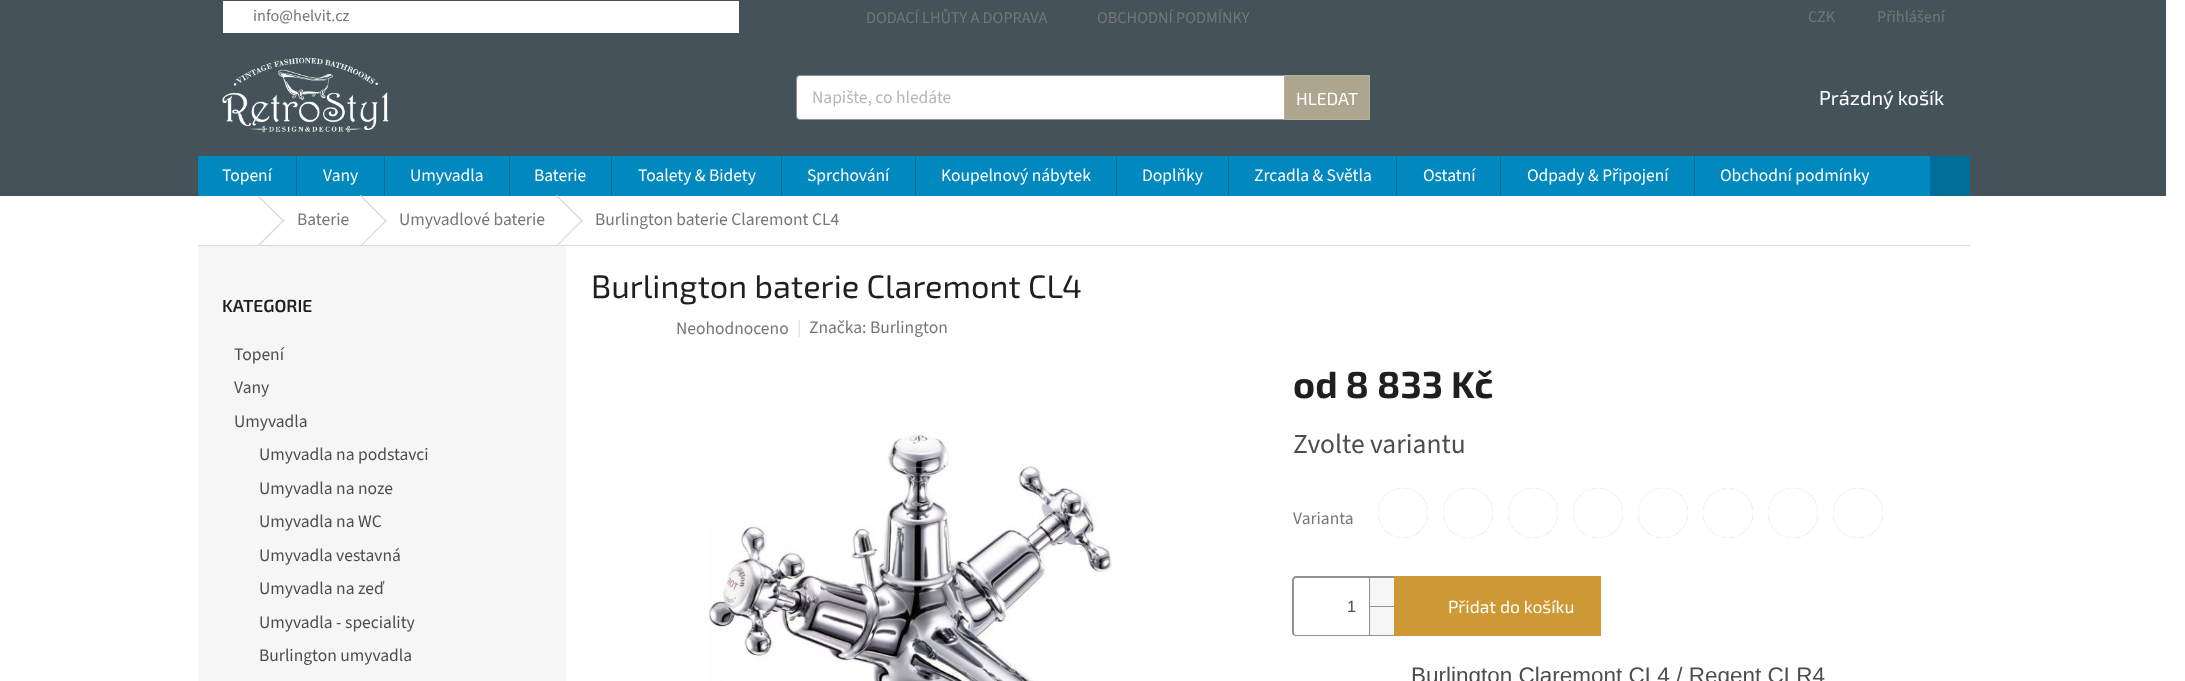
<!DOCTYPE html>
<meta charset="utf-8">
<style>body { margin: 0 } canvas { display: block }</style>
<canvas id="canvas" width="2185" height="681"></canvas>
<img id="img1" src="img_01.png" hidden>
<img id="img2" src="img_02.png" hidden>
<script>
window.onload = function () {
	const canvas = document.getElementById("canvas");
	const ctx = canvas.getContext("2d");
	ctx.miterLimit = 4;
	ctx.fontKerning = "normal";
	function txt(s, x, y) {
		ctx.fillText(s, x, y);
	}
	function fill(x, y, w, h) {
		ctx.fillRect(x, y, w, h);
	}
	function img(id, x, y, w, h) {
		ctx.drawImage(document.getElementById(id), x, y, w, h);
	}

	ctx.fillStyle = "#FFFFFF";
	fill(0, 0, 2185, 681);
	ctx.fillStyle = "#445359";
	fill(0, 0, 2166, 196);
	ctx.fillStyle = "#FFFFFF";
	fill(223, 1, 516, 32);
	img("img1", 222, 57, 167, 76);
	ctx.beginPath();
	ctx.roundRect(796.5, 75.5, 573, 44, 3.5);
	ctx.fill();
	ctx.strokeStyle = "#919191";
	ctx.stroke();
	ctx.fillStyle = "#ADA58E";
	ctx.beginPath();
	ctx.rect(1284.5, 75.5, 85, 44);
	ctx.fill();
	ctx.strokeStyle = "#B7B09A";
	ctx.stroke();
	ctx.fillStyle = "#0088BF";
	fill(198, 156, 1732, 40);
	ctx.fillStyle = "#006E99";
	fill(296, 156, 1, 40);
	fill(384, 156, 1, 40);
	fill(509, 156, 1, 40);
	fill(611, 156, 1, 40);
	fill(781, 156, 1, 40);
	fill(915, 156, 1, 40);
	fill(1116, 156, 1, 40);
	fill(1228, 156, 1, 40);
	fill(1396, 156, 1, 40);
	fill(1500, 156, 1, 40);
	fill(1694, 156, 1, 40);
	fill(1930, 156, 40, 40);
	ctx.fillStyle = "#DADADA";
	fill(198, 245, 1772, 1);
	ctx.beginPath();
	ctx.moveTo(258, 197);
	ctx.lineTo(259, 196);
	ctx.lineTo(284.5, 221);
	ctx.lineTo(283.5, 222);
	ctx.closePath();
	ctx.fill();
	ctx.beginPath();
	ctx.moveTo(283.5, 219.5);
	ctx.lineTo(284.5, 220.5);
	ctx.lineTo(259, 246);
	ctx.lineTo(258, 245);
	ctx.closePath();
	ctx.fill();
	ctx.beginPath();
	ctx.moveTo(360, 196);
	ctx.lineTo(361, 195);
	ctx.lineTo(387, 221);
	ctx.lineTo(386, 222);
	ctx.closePath();
	ctx.fill();
	ctx.fillStyle = "#F6F6F6";
	fill(198, 246, 368, 435);
	ctx.fillStyle = "#DADADA";
	ctx.beginPath();
	ctx.moveTo(386, 219.5);
	ctx.lineTo(387, 220.5);
	ctx.lineTo(361, 246.5);
	ctx.lineTo(360, 246);
	ctx.closePath();
	ctx.fill();
	ctx.beginPath();
	ctx.moveTo(556, 196);
	ctx.lineTo(557, 195);
	ctx.lineTo(583, 221);
	ctx.lineTo(582, 222);
	ctx.closePath();
	ctx.fill();
	ctx.beginPath();
	ctx.moveTo(582, 219.5);
	ctx.lineTo(583, 220.5);
	ctx.lineTo(557, 246.5);
	ctx.lineTo(556, 246);
	ctx.closePath();
	ctx.fill();
	img("img2", 708, 433, 404, 248);
	ctx.save();
	ctx.beginPath();
	ctx.moveTo(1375, 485);
	ctx.lineTo(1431, 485);
	ctx.lineTo(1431, 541);
	ctx.lineTo(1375, 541);
	ctx.closePath();
	ctx.moveTo(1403, 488);
	ctx.bezierCurveTo(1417, 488, 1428, 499, 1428, 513);
	ctx.bezierCurveTo(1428, 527, 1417, 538, 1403, 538);
	ctx.bezierCurveTo(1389, 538, 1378, 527, 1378, 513);
	ctx.bezierCurveTo(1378, 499, 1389, 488, 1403, 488);
	ctx.closePath();
	ctx.clip("evenodd");
	ctx.fillStyle = "rgba(0, 0, 0, 0.5)";
	ctx.filter = "blur(0.5px)";
	ctx.beginPath();
	ctx.roundRect(1378, 488, 50, 50, 25);
	ctx.fill();
	ctx.filter = "none";
	ctx.restore();
	ctx.beginPath();
	ctx.arc(1403, 513, 24.5, 0, Math.PI * 2);
	ctx.strokeStyle = "#FCFCFC";
	ctx.stroke();
	ctx.save();
	ctx.beginPath();
	ctx.moveTo(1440, 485);
	ctx.lineTo(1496, 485);
	ctx.lineTo(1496, 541);
	ctx.lineTo(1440, 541);
	ctx.closePath();
	ctx.moveTo(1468, 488);
	ctx.bezierCurveTo(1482, 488, 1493, 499, 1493, 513);
	ctx.bezierCurveTo(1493, 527, 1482, 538, 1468, 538);
	ctx.bezierCurveTo(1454, 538, 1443, 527, 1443, 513);
	ctx.bezierCurveTo(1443, 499, 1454, 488, 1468, 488);
	ctx.closePath();
	ctx.clip("evenodd");
	ctx.fillStyle = "rgba(0, 0, 0, 0.5)";
	ctx.filter = "blur(0.5px)";
	ctx.beginPath();
	ctx.roundRect(1443, 488, 50, 50, 25);
	ctx.fill();
	ctx.filter = "none";
	ctx.restore();
	ctx.beginPath();
	ctx.arc(1468, 513, 24.5, 0, Math.PI * 2);
	ctx.stroke();
	ctx.save();
	ctx.beginPath();
	ctx.moveTo(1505, 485);
	ctx.lineTo(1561, 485);
	ctx.lineTo(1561, 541);
	ctx.lineTo(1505, 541);
	ctx.closePath();
	ctx.moveTo(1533, 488);
	ctx.bezierCurveTo(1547, 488, 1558, 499, 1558, 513);
	ctx.bezierCurveTo(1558, 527, 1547, 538, 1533, 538);
	ctx.bezierCurveTo(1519, 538, 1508, 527, 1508, 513);
	ctx.bezierCurveTo(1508, 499, 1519, 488, 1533, 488);
	ctx.closePath();
	ctx.clip("evenodd");
	ctx.fillStyle = "rgba(0, 0, 0, 0.5)";
	ctx.filter = "blur(0.5px)";
	ctx.beginPath();
	ctx.roundRect(1508, 488, 50, 50, 25);
	ctx.fill();
	ctx.filter = "none";
	ctx.restore();
	ctx.beginPath();
	ctx.arc(1533, 513, 24.5, 0, Math.PI * 2);
	ctx.stroke();
	ctx.save();
	ctx.beginPath();
	ctx.moveTo(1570, 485);
	ctx.lineTo(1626, 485);
	ctx.lineTo(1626, 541);
	ctx.lineTo(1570, 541);
	ctx.closePath();
	ctx.moveTo(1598, 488);
	ctx.bezierCurveTo(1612, 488, 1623, 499, 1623, 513);
	ctx.bezierCurveTo(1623, 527, 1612, 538, 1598, 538);
	ctx.bezierCurveTo(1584, 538, 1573, 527, 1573, 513);
	ctx.bezierCurveTo(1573, 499, 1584, 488, 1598, 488);
	ctx.closePath();
	ctx.clip("evenodd");
	ctx.fillStyle = "rgba(0, 0, 0, 0.5)";
	ctx.filter = "blur(0.5px)";
	ctx.beginPath();
	ctx.roundRect(1573, 488, 50, 50, 25);
	ctx.fill();
	ctx.filter = "none";
	ctx.restore();
	ctx.beginPath();
	ctx.arc(1598, 513, 24.5, 0, Math.PI * 2);
	ctx.stroke();
	ctx.save();
	ctx.beginPath();
	ctx.moveTo(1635, 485);
	ctx.lineTo(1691, 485);
	ctx.lineTo(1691, 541);
	ctx.lineTo(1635, 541);
	ctx.closePath();
	ctx.moveTo(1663, 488);
	ctx.bezierCurveTo(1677, 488, 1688, 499, 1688, 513);
	ctx.bezierCurveTo(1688, 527, 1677, 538, 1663, 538);
	ctx.bezierCurveTo(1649, 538, 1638, 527, 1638, 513);
	ctx.bezierCurveTo(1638, 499, 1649, 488, 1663, 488);
	ctx.closePath();
	ctx.clip("evenodd");
	ctx.fillStyle = "rgba(0, 0, 0, 0.5)";
	ctx.filter = "blur(0.5px)";
	ctx.beginPath();
	ctx.roundRect(1638, 488, 50, 50, 25);
	ctx.fill();
	ctx.filter = "none";
	ctx.restore();
	ctx.beginPath();
	ctx.arc(1663, 513, 24.5, 0, Math.PI * 2);
	ctx.stroke();
	ctx.save();
	ctx.beginPath();
	ctx.moveTo(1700, 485);
	ctx.lineTo(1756, 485);
	ctx.lineTo(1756, 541);
	ctx.lineTo(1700, 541);
	ctx.closePath();
	ctx.moveTo(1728, 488);
	ctx.bezierCurveTo(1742, 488, 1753, 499, 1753, 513);
	ctx.bezierCurveTo(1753, 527, 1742, 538, 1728, 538);
	ctx.bezierCurveTo(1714, 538, 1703, 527, 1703, 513);
	ctx.bezierCurveTo(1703, 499, 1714, 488, 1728, 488);
	ctx.closePath();
	ctx.clip("evenodd");
	ctx.fillStyle = "rgba(0, 0, 0, 0.5)";
	ctx.filter = "blur(0.5px)";
	ctx.beginPath();
	ctx.roundRect(1703, 488, 50, 50, 25);
	ctx.fill();
	ctx.filter = "none";
	ctx.restore();
	ctx.beginPath();
	ctx.arc(1728, 513, 24.5, 0, Math.PI * 2);
	ctx.stroke();
	ctx.save();
	ctx.beginPath();
	ctx.moveTo(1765, 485);
	ctx.lineTo(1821, 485);
	ctx.lineTo(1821, 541);
	ctx.lineTo(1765, 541);
	ctx.closePath();
	ctx.moveTo(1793, 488);
	ctx.bezierCurveTo(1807, 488, 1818, 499, 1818, 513);
	ctx.bezierCurveTo(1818, 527, 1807, 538, 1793, 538);
	ctx.bezierCurveTo(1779, 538, 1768, 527, 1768, 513);
	ctx.bezierCurveTo(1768, 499, 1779, 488, 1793, 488);
	ctx.closePath();
	ctx.clip("evenodd");
	ctx.fillStyle = "rgba(0, 0, 0, 0.5)";
	ctx.filter = "blur(0.5px)";
	ctx.beginPath();
	ctx.roundRect(1768, 488, 50, 50, 25);
	ctx.fill();
	ctx.filter = "none";
	ctx.restore();
	ctx.beginPath();
	ctx.arc(1793, 513, 24.5, 0, Math.PI * 2);
	ctx.stroke();
	ctx.save();
	ctx.beginPath();
	ctx.moveTo(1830, 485);
	ctx.lineTo(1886, 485);
	ctx.lineTo(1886, 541);
	ctx.lineTo(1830, 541);
	ctx.closePath();
	ctx.moveTo(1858, 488);
	ctx.bezierCurveTo(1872, 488, 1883, 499, 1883, 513);
	ctx.bezierCurveTo(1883, 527, 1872, 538, 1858, 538);
	ctx.bezierCurveTo(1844, 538, 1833, 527, 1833, 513);
	ctx.bezierCurveTo(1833, 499, 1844, 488, 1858, 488);
	ctx.closePath();
	ctx.clip("evenodd");
	ctx.fillStyle = "rgba(0, 0, 0, 0.5)";
	ctx.filter = "blur(0.5px)";
	ctx.beginPath();
	ctx.roundRect(1833, 488, 50, 50, 25);
	ctx.fill();
	ctx.filter = "none";
	ctx.restore();
	ctx.beginPath();
	ctx.arc(1858, 513, 24.5, 0, Math.PI * 2);
	ctx.stroke();
	ctx.fillStyle = "#919191";
	ctx.beginPath();
	ctx.moveTo(1296, 576);
	ctx.lineTo(1394, 576);
	ctx.lineTo(1394, 636);
	ctx.lineTo(1296, 636);
	ctx.bezierCurveTo(1294, 636, 1292, 635, 1292, 632);
	ctx.lineTo(1292, 580);
	ctx.bezierCurveTo(1292, 578, 1294, 576, 1296, 576);
	ctx.closePath();
	ctx.moveTo(1296, 578);
	ctx.lineTo(1394, 578);
	ctx.lineTo(1394, 635);
	ctx.lineTo(1296, 635);
	ctx.bezierCurveTo(1295, 635, 1294, 634, 1294, 632);
	ctx.lineTo(1294, 580);
	ctx.bezierCurveTo(1294, 579, 1295, 578, 1296, 578);
	ctx.closePath();
	ctx.fill("evenodd");
	ctx.fillStyle = "#F6F6F6";
	fill(1370, 578, 24, 28);
	ctx.fillStyle = "#919191";
	fill(1369, 578, 1, 28);
	ctx.fillStyle = "#F6F6F6";
	fill(1370, 607, 24, 28);
	ctx.fillStyle = "#919191";
	fill(1369, 606, 25, 1);
	fill(1369, 606, 1, 29);
	ctx.fillStyle = "#CD9934";
	fill(1394, 576, 207, 60);
	ctx.font = "16.25px 'Source Sans 3'";
	ctx.fillStyle = "#767676";
	txt("info@helvit.cz", 253, 21);
	txt("DODACÍ LHŮTY A DOPRAVA", 866, 23);
	txt("OBCHODNÍ PODMÍNKY", 1097, 23);
	txt("CZK", 1808, 22);
	txt("Přihlášení", 1877, 22);
	ctx.font = "17.5px 'Source Sans 3'";
	ctx.fillStyle = "#B6B6B6";
	txt("Napište, co hledáte", 812, 103);
	ctx.font = "17.5px 'Exo 2'";
	ctx.fillStyle = "#FFFFFF";
	txt("HLEDAT", 1296, 105);
	ctx.font = "20px 'Exo 2'";
	txt("Prázdný košík", 1819, 105);
	ctx.font = "17.5px 'Source Sans 3'";
	txt("Topení", 222, 181);
	txt("Vany", 323, 181);
	txt("Umyvadla", 410, 181);
	txt("Baterie", 534, 181);
	txt("Toalety & Bidety", 638, 181);
	txt("Sprchování", 807, 181);
	txt("Koupelnový nábytek", 941, 181);
	txt("Doplňky", 1142, 181);
	txt("Zrcadla & Světla", 1254, 181);
	txt("Ostatní", 1423, 181);
	txt("Odpady & Připojení", 1527, 181);
	txt("Obchodní podmínky", 1720, 181);
	ctx.fillStyle = "#767676";
	txt("Baterie", 297, 225);
	txt("Umyvadlové baterie", 399, 225);
	txt("Burlington baterie Claremont CL4", 595, 225);
	ctx.font = "600 17.5px 'Exo 2'";
	ctx.fillStyle = "#1F1F1F";
	txt("KATEGORIE", 222, 312);
	ctx.font = "17.5px 'Source Sans 3'";
	ctx.fillStyle = "#4D4D4D";
	txt("Topení", 234, 360);
	txt("Vany", 234, 393);
	txt("Umyvadla", 234, 427);
	txt("Umyvadla na podstavci", 259, 460);
	txt("Umyvadla na noze", 259, 494);
	txt("Umyvadla na WC", 259, 527);
	txt("Umyvadla vestavná", 259, 561);
	txt("Umyvadla na zeď", 259, 594);
	txt("Umyvadla - speciality", 259, 628);
	txt("Burlington umyvadla", 259, 661);
	ctx.font = "32.5px 'Exo 2'";
	ctx.fillStyle = "#1F1F1F";
	txt("Burlington baterie Claremont CL4", 591, 298);
	ctx.font = "17.5px 'Source Sans 3'";
	ctx.fillStyle = "#767676";
	txt("Neohodnoceno", 676, 334);
	ctx.fillStyle = "#DADADA";
	txt("|", 797, 333);
	ctx.fillStyle = "#767676";
	txt("Značka: Burlington", 809, 333);
	ctx.font = "bold 37.5px 'Exo 2'";
	ctx.fillStyle = "#1F1F1F";
	txt("od 8 833 Kč", 1293, 398);
	ctx.font = "27.5px 'Source Sans 3'";
	ctx.fillStyle = "#4D4D4D";
	txt("Zvolte variantu", 1293, 453);
	ctx.font = "17.5px 'Source Sans 3'";
	ctx.fillStyle = "#767676";
	txt("Varianta", 1293, 524);
	ctx.font = "16.25px Liberation Sans";
	ctx.fillStyle = "#4D4D4D";
	txt("1", 1347, 612);
	ctx.font = "17.5px 'Exo 2'";
	ctx.fillStyle = "#FFFFFF";
	txt("Přidat do košíku", 1448, 613);
	ctx.font = "22.5px Liberation Sans";
	ctx.fillStyle = "#4D4D4D";
	txt("Burlington Claremont CL4 / Regent CLR4", 1411, 683);
};
</script>
